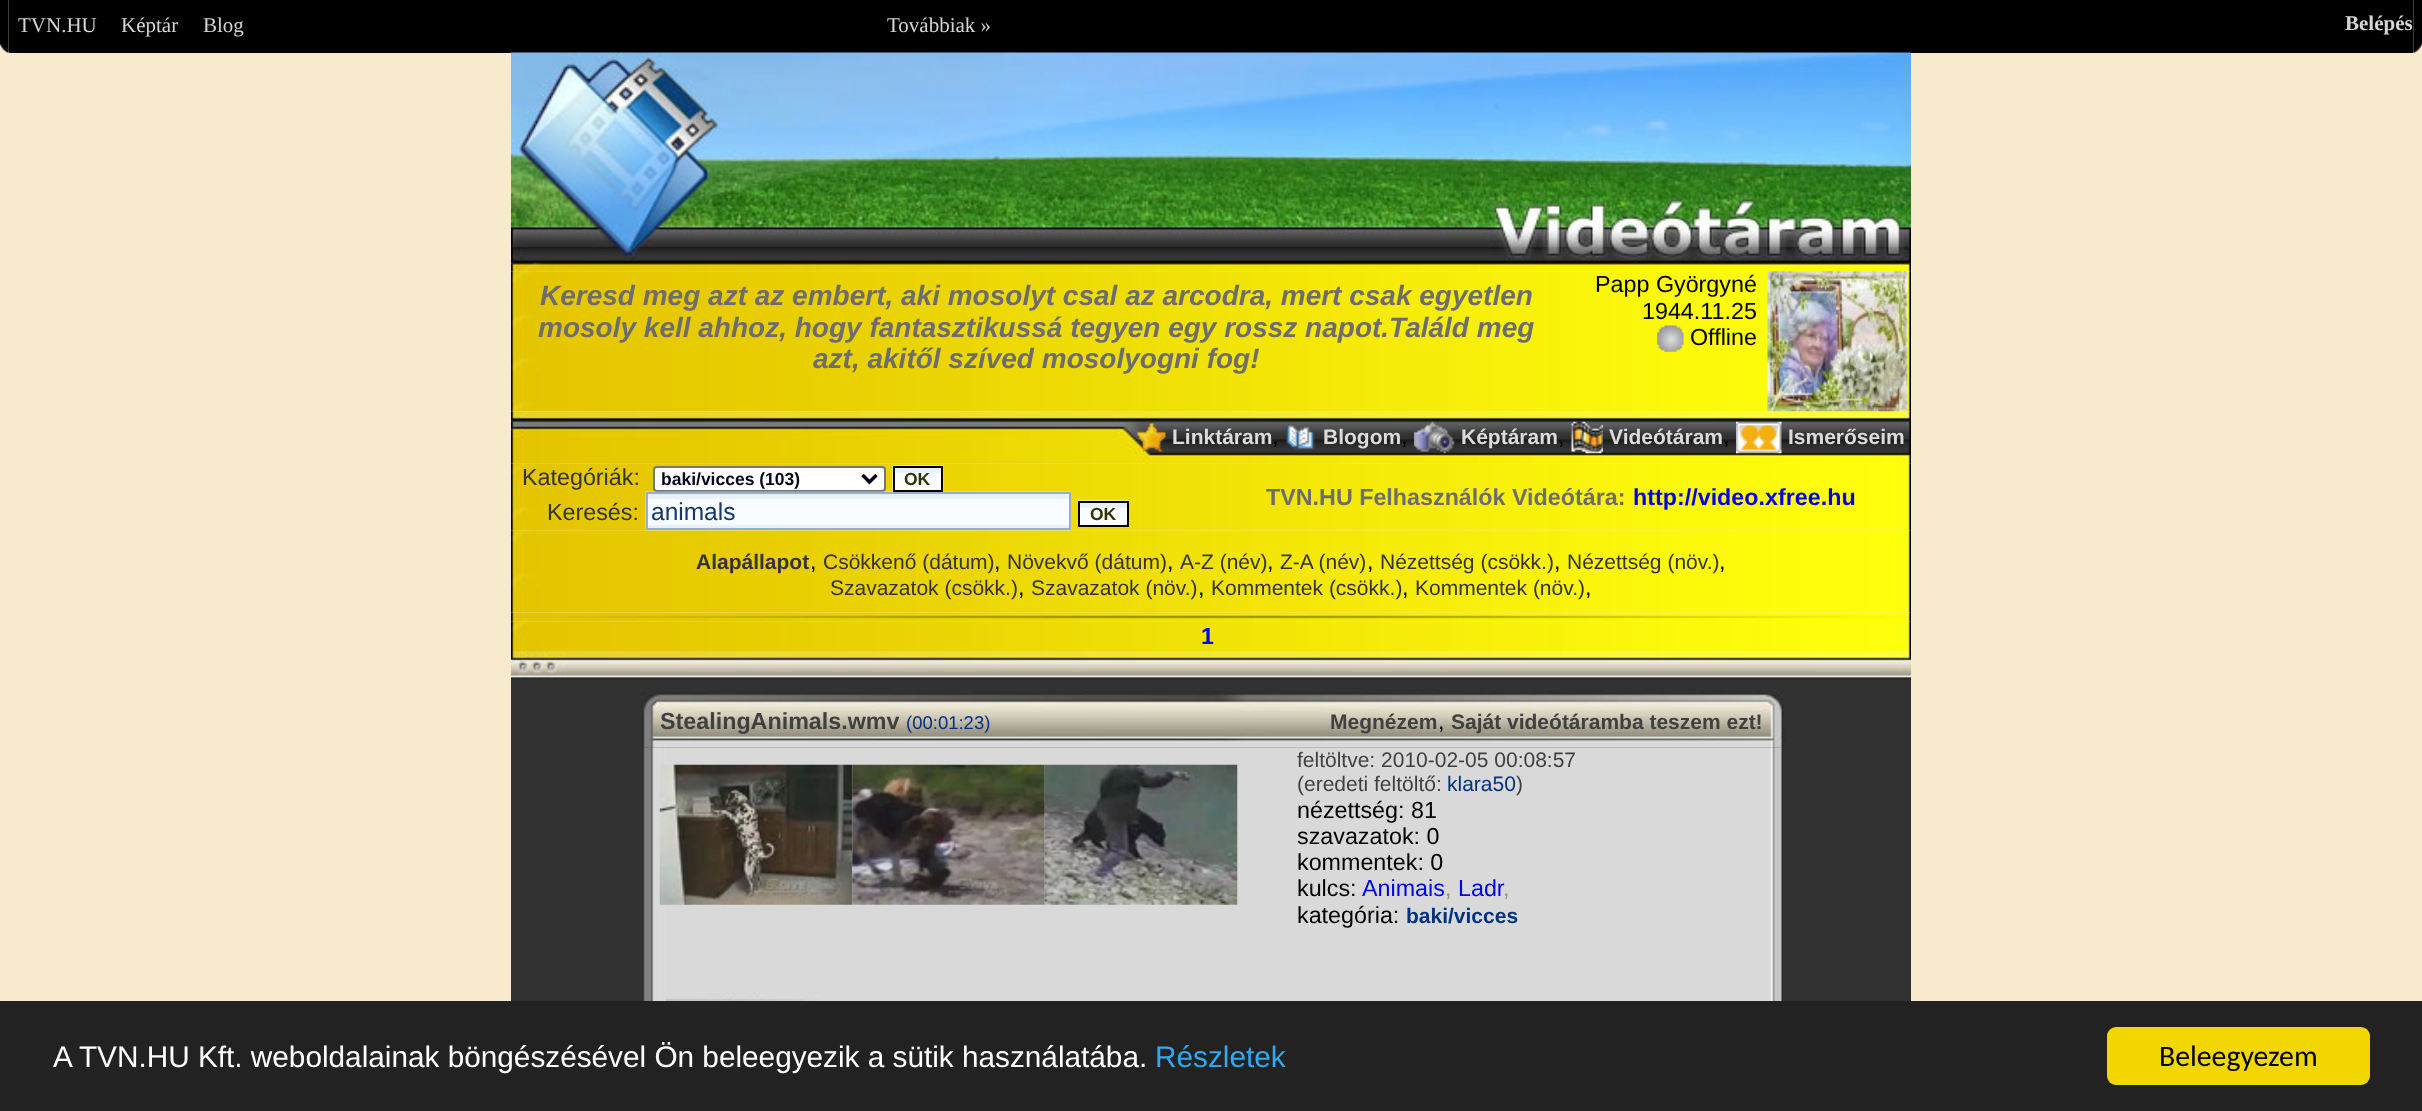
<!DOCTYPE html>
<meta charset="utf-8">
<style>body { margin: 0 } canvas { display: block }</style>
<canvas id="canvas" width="2422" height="1111"></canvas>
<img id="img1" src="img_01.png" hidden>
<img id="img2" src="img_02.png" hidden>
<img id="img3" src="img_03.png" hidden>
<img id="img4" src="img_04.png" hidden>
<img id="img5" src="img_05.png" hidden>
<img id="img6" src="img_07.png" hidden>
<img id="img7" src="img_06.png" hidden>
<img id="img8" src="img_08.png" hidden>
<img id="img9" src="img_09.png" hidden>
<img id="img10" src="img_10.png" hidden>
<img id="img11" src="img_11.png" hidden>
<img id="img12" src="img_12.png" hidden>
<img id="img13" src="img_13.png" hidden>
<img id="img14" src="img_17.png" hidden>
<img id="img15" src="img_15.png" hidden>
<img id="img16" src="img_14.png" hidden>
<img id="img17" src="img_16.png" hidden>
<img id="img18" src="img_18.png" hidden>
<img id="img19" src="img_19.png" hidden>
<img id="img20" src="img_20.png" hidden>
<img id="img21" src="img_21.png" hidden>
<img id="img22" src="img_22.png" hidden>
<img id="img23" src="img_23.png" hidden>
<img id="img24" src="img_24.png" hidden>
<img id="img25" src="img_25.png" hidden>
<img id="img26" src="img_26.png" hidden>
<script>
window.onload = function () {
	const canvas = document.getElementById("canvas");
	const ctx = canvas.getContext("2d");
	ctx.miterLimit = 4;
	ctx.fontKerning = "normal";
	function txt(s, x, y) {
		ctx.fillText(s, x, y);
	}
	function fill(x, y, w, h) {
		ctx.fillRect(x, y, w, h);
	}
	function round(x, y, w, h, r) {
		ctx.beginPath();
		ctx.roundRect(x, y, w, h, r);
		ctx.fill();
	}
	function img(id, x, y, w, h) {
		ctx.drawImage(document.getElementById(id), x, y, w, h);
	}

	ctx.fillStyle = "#F8EACC";
	fill(0, 0, 2422, 1111);
	img("img1", 0, 0, 9, 53);
	ctx.fillStyle = "#000000";
	fill(9, 0, 2404, 53);
	img("img2", 2413, 0, 9, 53);
	img("img3", 511, 52, 1400, 220);
	img("img4", 511, 271, 1400, 141);
	img("img5", 1657, 325, 27, 27);
	img("img6", 511, 411, 1400, 53);
	img("img7", 1767, 271, 141, 141);
	img("img8", 1137, 423, 29, 29);
	img("img9", 1286, 425, 29, 25);
	img("img10", 1414, 421, 41, 33);
	img("img11", 1571, 421, 32, 33);
	img("img12", 1736, 421, 46, 33);
	img("img13", 511, 463, 1400, 68);
	ctx.fillStyle = "#FFFFFF";
	ctx.beginPath();
	ctx.roundRect(654, 467, 231, 24, 3);
	ctx.fill();
	ctx.strokeStyle = "#767676";
	ctx.lineWidth = 2;
	ctx.stroke();
	ctx.beginPath();
	ctx.moveTo(862.5, 475);
	ctx.lineTo(869.5, 482);
	ctx.lineTo(876.5, 475);
	ctx.strokeStyle = "#09021E";
	ctx.lineWidth = 3.5;
	ctx.stroke();
	img("img14", 511, 530, 1400, 83);
	img("img15", 645, 491, 426, 40);
	img("img16", 892, 465, 52, 27);
	ctx.strokeStyle = "#000000";
	ctx.lineWidth = 2;
	ctx.strokeRect(894, 467, 48, 24);
	ctx.strokeStyle = "#8FB0CF";
	ctx.strokeRect(647, 493, 423, 36);
	img("img17", 1078, 500, 51, 25);
	ctx.strokeStyle = "#000000";
	ctx.strokeRect(1079, 502, 49, 24);
	img("img18", 511, 612, 1400, 10);
	img("img19", 511, 621, 1400, 30);
	ctx.fillStyle = "#323232";
	fill(511, 680, 1400, 321);
	img("img20", 511, 651, 1400, 29);
	img("img21", 641, 688, 1144, 60);
	img("img22", 642, 747, 1141, 254);
	img("img23", 659, 764, 194, 141);
	img("img24", 852, 764, 193, 141);
	img("img25", 1044, 764, 194, 141);
	img("img26", 665, 992, 225, 9);
	ctx.fillStyle = "#222222";
	fill(0, 1001, 2422, 110);
	ctx.fillStyle = "#F1D600";
	round(2107, 1027, 263, 58, 9);
	ctx.font = "21px Liberation Serif";
	ctx.fillStyle = "#D5D5D5";
	txt("TVN.HU", 18, 32);
	txt("Képtár", 121, 32);
	txt("Blog", 203, 32);
	txt("Továbbiak »", 887, 32);
	ctx.font = "bold 21px Liberation Serif";
	txt("Belépés", 2345, 30);
	ctx.font = "italic bold 28px Liberation Sans";
	ctx.fillStyle = "#6D6D6D";
	txt("Keresd meg azt az embert, aki mosolyt csal az arcodra, mert csak egyetlen", 540, 305);
	txt("mosoly kell ahhoz, hogy fantasztikussá tegyen egy rossz napot.Találd meg", 538, 337);
	txt("azt, akitől szíved mosolyogni fog!", 813, 368);
	ctx.font = "23.3px Liberation Sans";
	ctx.fillStyle = "#000000";
	txt("Papp Györgyné", 1595, 292);
	txt("1944.11.25", 1642, 319);
	txt("Offline", 1690, 345);
	ctx.font = "bold 21px Liberation Sans";
	ctx.fillStyle = "#DCDCDC";
	txt("Linktáram", 1172, 444);
	ctx.font = "23.3px Liberation Sans";
	ctx.fillStyle = "#000000";
	txt(",", 1272, 444);
	ctx.font = "bold 21px Liberation Sans";
	ctx.fillStyle = "#DCDCDC";
	txt("Blogom", 1323, 444);
	ctx.font = "23.3px Liberation Sans";
	ctx.fillStyle = "#000000";
	txt(",", 1401, 444);
	ctx.font = "bold 21px Liberation Sans";
	ctx.fillStyle = "#DCDCDC";
	txt("Képtáram", 1461, 444);
	ctx.font = "23.3px Liberation Sans";
	ctx.fillStyle = "#000000";
	txt(",", 1558, 444);
	ctx.font = "bold 21px Liberation Sans";
	ctx.fillStyle = "#DCDCDC";
	txt("Videótáram", 1609, 444);
	ctx.font = "23.3px Liberation Sans";
	ctx.fillStyle = "#000000";
	txt(",", 1723, 444);
	ctx.font = "bold 21px Liberation Sans";
	ctx.fillStyle = "#DCDCDC";
	txt("Ismerőseim", 1788, 444);
	ctx.font = "23.3px Liberation Sans";
	ctx.fillStyle = "#353338";
	txt("Kategóriák:", 522, 485);
	ctx.font = "bold 17.5px Liberation Sans";
	ctx.fillStyle = "#09021E";
	txt("baki/vicces (103)", 661, 485);
	ctx.fillStyle = "#333300";
	txt("OK", 904, 485);
	ctx.font = "23.3px Liberation Sans";
	ctx.fillStyle = "#353338";
	txt("Keresés:", 547, 520);
	ctx.font = "24.5px Liberation Sans";
	ctx.fillStyle = "#133572";
	txt("animals", 651, 520);
	ctx.font = "bold 17.5px Liberation Sans";
	ctx.fillStyle = "#333300";
	txt("OK", 1090, 520);
	ctx.font = "bold 23.3px Liberation Sans";
	ctx.fillStyle = "#6D6D6D";
	txt("TVN.HU Felhasználók Videótára:", 1266, 505);
	ctx.fillStyle = "#0000EE";
	txt("http://video.xfree.hu", 1633, 505);
	ctx.font = "bold 21px Liberation Sans";
	ctx.fillStyle = "#353338";
	txt("Alapállapot", 696, 569);
	ctx.font = "23.3px Liberation Sans";
	ctx.fillStyle = "#000000";
	txt(",", 810, 569);
	ctx.font = "21px Liberation Sans";
	ctx.fillStyle = "#353338";
	txt("Csökkenő (dátum)", 823, 569);
	ctx.font = "23.3px Liberation Sans";
	ctx.fillStyle = "#000000";
	txt(",", 994, 569);
	ctx.font = "21px Liberation Sans";
	ctx.fillStyle = "#353338";
	txt("Növekvő (dátum)", 1007, 569);
	ctx.font = "23.3px Liberation Sans";
	ctx.fillStyle = "#000000";
	txt(",", 1167, 569);
	ctx.font = "21px Liberation Sans";
	ctx.fillStyle = "#353338";
	txt("A-Z (név)", 1180, 569);
	ctx.font = "23.3px Liberation Sans";
	ctx.fillStyle = "#000000";
	txt(",", 1267, 569);
	ctx.font = "21px Liberation Sans";
	ctx.fillStyle = "#353338";
	txt("Z-A (név)", 1280, 569);
	ctx.font = "23.3px Liberation Sans";
	ctx.fillStyle = "#000000";
	txt(",", 1367, 569);
	ctx.font = "21px Liberation Sans";
	ctx.fillStyle = "#353338";
	txt("Nézettség (csökk.)", 1380, 569);
	ctx.font = "23.3px Liberation Sans";
	ctx.fillStyle = "#000000";
	txt(",", 1554, 569);
	ctx.font = "21px Liberation Sans";
	ctx.fillStyle = "#353338";
	txt("Nézettség (növ.)", 1567, 569);
	ctx.font = "23.3px Liberation Sans";
	ctx.fillStyle = "#000000";
	txt(",", 1719, 569);
	ctx.font = "21px Liberation Sans";
	ctx.fillStyle = "#353338";
	txt("Szavazatok (csökk.)", 830, 595);
	ctx.font = "23.3px Liberation Sans";
	ctx.fillStyle = "#000000";
	txt(",", 1018, 595);
	ctx.font = "21px Liberation Sans";
	ctx.fillStyle = "#353338";
	txt("Szavazatok (növ.)", 1031, 595);
	ctx.font = "23.3px Liberation Sans";
	ctx.fillStyle = "#000000";
	txt(",", 1198, 595);
	ctx.font = "21px Liberation Sans";
	ctx.fillStyle = "#353338";
	txt("Kommentek (csökk.)", 1211, 595);
	ctx.font = "23.3px Liberation Sans";
	ctx.fillStyle = "#000000";
	txt(",", 1402, 595);
	ctx.font = "21px Liberation Sans";
	ctx.fillStyle = "#353338";
	txt("Kommentek (növ.)", 1415, 595);
	ctx.font = "23.3px Liberation Sans";
	ctx.fillStyle = "#000000";
	txt(",", 1585, 595);
	ctx.font = "bold 23.3px Liberation Sans";
	ctx.fillStyle = "#0000EE";
	txt("1", 1201, 644);
	ctx.fillStyle = "#404040";
	txt("StealingAnimals.wmv", 660, 729);
	ctx.font = "18.5px Liberation Sans";
	ctx.fillStyle = "#033380";
	txt("(00:01:23)", 906, 729);
	ctx.font = "bold 21px Liberation Sans";
	ctx.fillStyle = "#404040";
	txt("Megnézem", 1330, 729);
	ctx.font = "23.3px Liberation Sans";
	ctx.fillStyle = "#000000";
	txt(",", 1438, 729);
	ctx.font = "bold 21px Liberation Sans";
	ctx.fillStyle = "#404040";
	txt("Saját videótáramba teszem ezt!", 1451, 729);
	ctx.font = "21px Liberation Sans";
	txt("feltöltve: 2010-02-05 00:08:57", 1297, 767);
	txt("(eredeti feltöltő:", 1297, 791);
	ctx.fillStyle = "#033380";
	txt("klara50", 1447, 791);
	ctx.fillStyle = "#404040";
	txt(")", 1516, 791);
	ctx.font = "23.3px Liberation Sans";
	ctx.fillStyle = "#000000";
	txt("nézettség: 81", 1297, 818);
	txt("szavazatok: 0", 1297, 844);
	txt("kommentek: 0", 1297, 870);
	txt("kulcs:", 1297, 896);
	ctx.fillStyle = "#0000EE";
	txt("Animais", 1362, 896);
	ctx.fillStyle = "#999966";
	txt(",", 1445, 896);
	ctx.fillStyle = "#0000EE";
	txt("Ladr", 1458, 896);
	ctx.fillStyle = "#999966";
	txt(",", 1503, 896);
	ctx.fillStyle = "#000000";
	txt("kategória:", 1297, 923);
	ctx.font = "bold 21px Liberation Sans";
	ctx.fillStyle = "#033380";
	txt("baki/vicces", 1406, 923);
	ctx.font = "29.75px Liberation Sans";
	ctx.fillStyle = "#FFFFFF";
	txt("A TVN.HU Kft. weboldalainak böngészésével Ön beleegyezik a sütik használatába.", 53, 1067);
	ctx.fillStyle = "#31A8F0";
	txt("Részletek", 1155, 1067);
	ctx.font = "29.75px Carlito";
	ctx.fillStyle = "#000000";
	txt("Beleegyezem", 2159, 1066);
};
</script>
